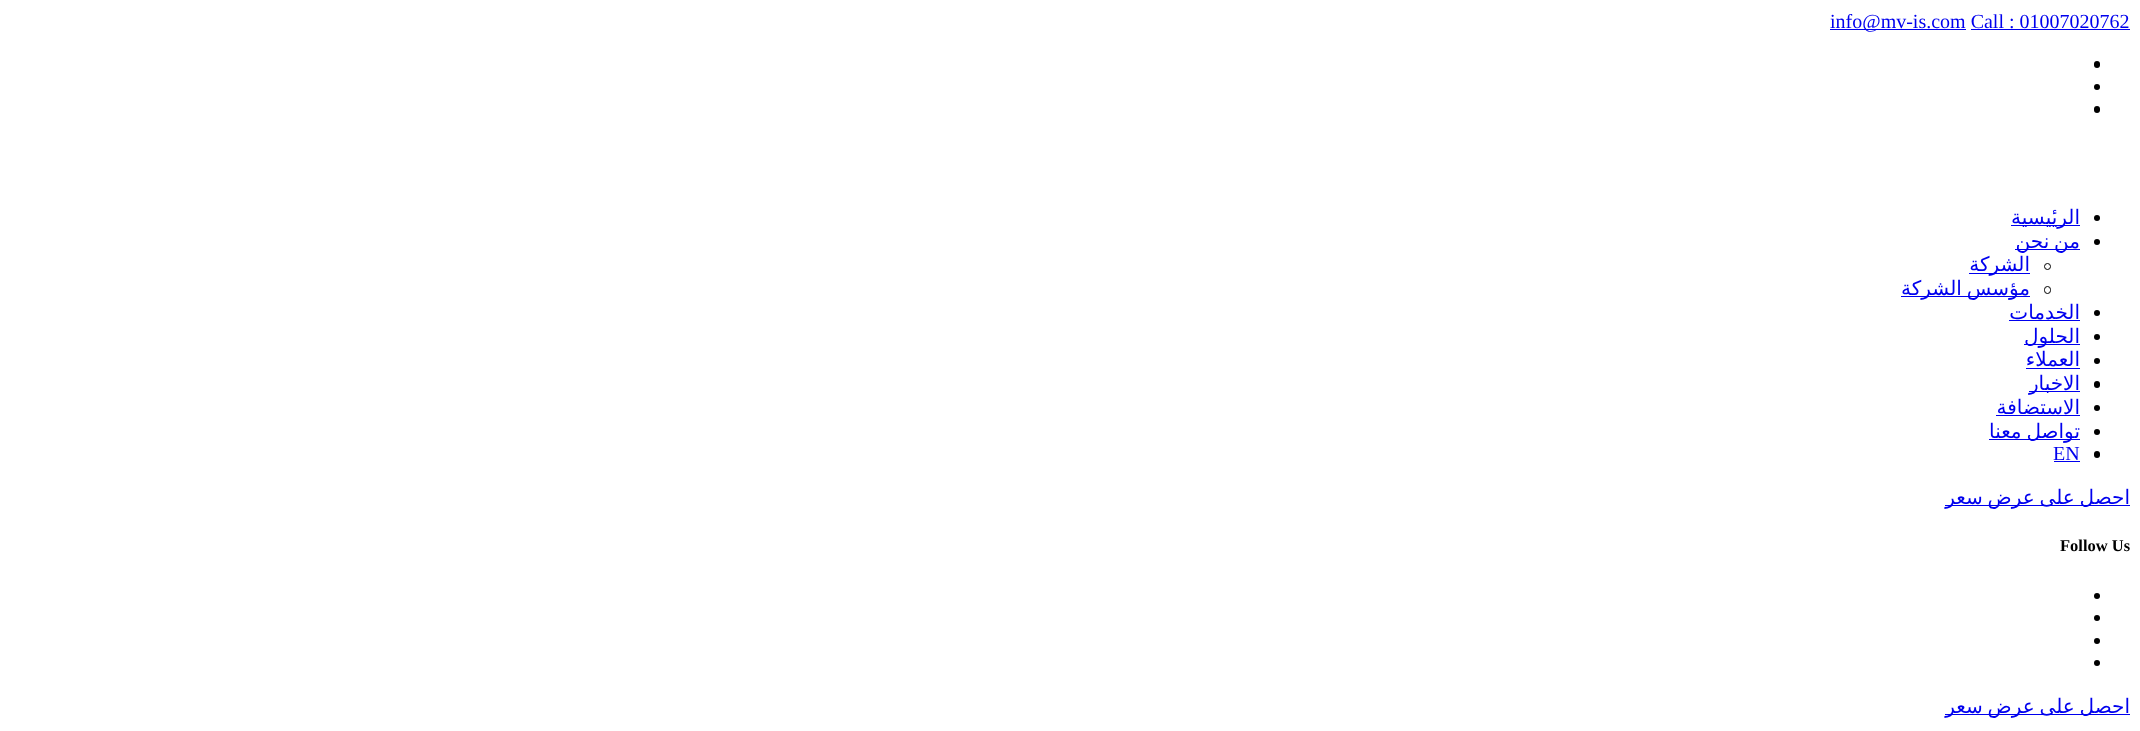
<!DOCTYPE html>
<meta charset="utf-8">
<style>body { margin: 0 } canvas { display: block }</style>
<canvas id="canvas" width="2140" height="731"></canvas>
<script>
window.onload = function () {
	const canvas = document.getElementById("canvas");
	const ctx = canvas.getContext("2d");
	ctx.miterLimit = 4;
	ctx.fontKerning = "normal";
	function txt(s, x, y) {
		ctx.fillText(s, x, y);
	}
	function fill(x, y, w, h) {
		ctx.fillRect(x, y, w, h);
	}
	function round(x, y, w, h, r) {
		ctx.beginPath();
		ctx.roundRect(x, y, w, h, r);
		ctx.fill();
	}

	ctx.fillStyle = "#FFFFFF";
	fill(0, 0, 2140, 731);
	ctx.fillStyle = "#0000EE";
	fill(1830, 29, 136, 1);
	fill(1971, 29, 159, 1);
	ctx.fillStyle = "#000000";
	round(2094, 61, 6, 7, 3);
	ctx.beginPath();
	ctx.arc(2097, 87, 3, 0, Math.PI * 2);
	ctx.fill();
	round(2094, 106, 6, 7, 3);
	ctx.beginPath();
	ctx.arc(2097, 218, 3, 0, Math.PI * 2);
	ctx.fill();
	ctx.fillStyle = "#0000EE";
	fill(2011, 225, 69, 1);
	ctx.fillStyle = "#000000";
	ctx.beginPath();
	ctx.arc(2097, 242, 3, 0, Math.PI * 2);
	ctx.fill();
	ctx.fillStyle = "#0000EE";
	fill(2015, 249, 65, 1);
	ctx.beginPath();
	ctx.arc(2047.5, 266.5, 3, 0, Math.PI * 2);
	ctx.strokeStyle = "#000000";
	ctx.stroke();
	fill(1969, 273, 61, 1);
	ctx.beginPath();
	ctx.roundRect(2044.5, 286.5, 6, 7, 3);
	ctx.stroke();
	fill(1901, 296, 129, 1);
	ctx.fillStyle = "#000000";
	ctx.beginPath();
	ctx.arc(2097, 313, 3, 0, Math.PI * 2);
	ctx.fill();
	ctx.fillStyle = "#0000EE";
	fill(2009, 320, 71, 1);
	ctx.fillStyle = "#000000";
	ctx.beginPath();
	ctx.arc(2097, 337, 3, 0, Math.PI * 2);
	ctx.fill();
	ctx.fillStyle = "#0000EE";
	fill(2024, 344, 56, 1);
	ctx.fillStyle = "#000000";
	ctx.beginPath();
	ctx.arc(2097, 361, 3, 0, Math.PI * 2);
	ctx.fill();
	ctx.fillStyle = "#0000EE";
	fill(2026, 368, 54, 1);
	ctx.fillStyle = "#000000";
	round(2094, 381, 6, 7, 3);
	ctx.fillStyle = "#0000EE";
	fill(2029, 391, 51, 1);
	ctx.fillStyle = "#000000";
	ctx.beginPath();
	ctx.arc(2097, 408, 3, 0, Math.PI * 2);
	ctx.fill();
	ctx.fillStyle = "#0000EE";
	fill(1996, 415, 84, 1);
	ctx.fillStyle = "#000000";
	ctx.beginPath();
	ctx.arc(2097, 432, 3, 0, Math.PI * 2);
	ctx.fill();
	ctx.fillStyle = "#0000EE";
	fill(1989, 439, 91, 1);
	ctx.fillStyle = "#000000";
	round(2094, 451, 6, 7, 3);
	ctx.fillStyle = "#0000EE";
	fill(2054, 461, 26, 1);
	fill(1945, 505, 185, 1);
	ctx.fillStyle = "#000000";
	ctx.beginPath();
	ctx.arc(2097, 596, 3, 0, Math.PI * 2);
	ctx.fill();
	ctx.beginPath();
	ctx.arc(2097, 618, 3, 0, Math.PI * 2);
	ctx.fill();
	ctx.beginPath();
	ctx.arc(2097, 641, 3, 0, Math.PI * 2);
	ctx.fill();
	ctx.beginPath();
	ctx.arc(2097, 663, 3, 0, Math.PI * 2);
	ctx.fill();
	ctx.fillStyle = "#0000EE";
	fill(1945, 714, 185, 1);
	ctx.font = "20px Liberation Serif";
	txt("info@mv-is.com Call : 01007020762", 1830, 28);
	ctx.direction = "rtl";
	ctx.font = "20px DejaVu Sans";
	txt("الرئيسية", 2080, 224);
	ctx.wordSpacing = "-1.5px";
	txt("من نحن", 2080, 248);
	ctx.wordSpacing = "0px";
	txt("الشركة", 2030, 271);
	ctx.wordSpacing = "-1.5px";
	txt("مؤسس الشركة", 2030, 295);
	ctx.wordSpacing = "0px";
	txt("الخدمات", 2080, 319);
	txt("الحلول", 2080, 343);
	txt("العملاء", 2080, 366);
	txt("الاخبار", 2080, 390);
	txt("الاستضافة", 2080, 414);
	ctx.wordSpacing = "-1.5px";
	txt("تواصل معنا", 2080, 438);
	ctx.wordSpacing = "0px";
	ctx.direction = "ltr";
	ctx.font = "20px Liberation Serif";
	txt("EN", 2053, 460);
	ctx.wordSpacing = "-1.5px";
	ctx.direction = "rtl";
	ctx.font = "20px DejaVu Sans";
	txt("احصل على عرض سعر", 2130, 504);
	ctx.wordSpacing = "0px";
	ctx.direction = "ltr";
	ctx.font = "bold 16.5px Liberation Serif";
	ctx.fillStyle = "#000000";
	txt("Follow Us", 2060, 551);
	ctx.wordSpacing = "-1.5px";
	ctx.direction = "rtl";
	ctx.font = "20px DejaVu Sans";
	ctx.fillStyle = "#0000EE";
	txt("احصل على عرض سعر", 2130, 713);
};
</script>
